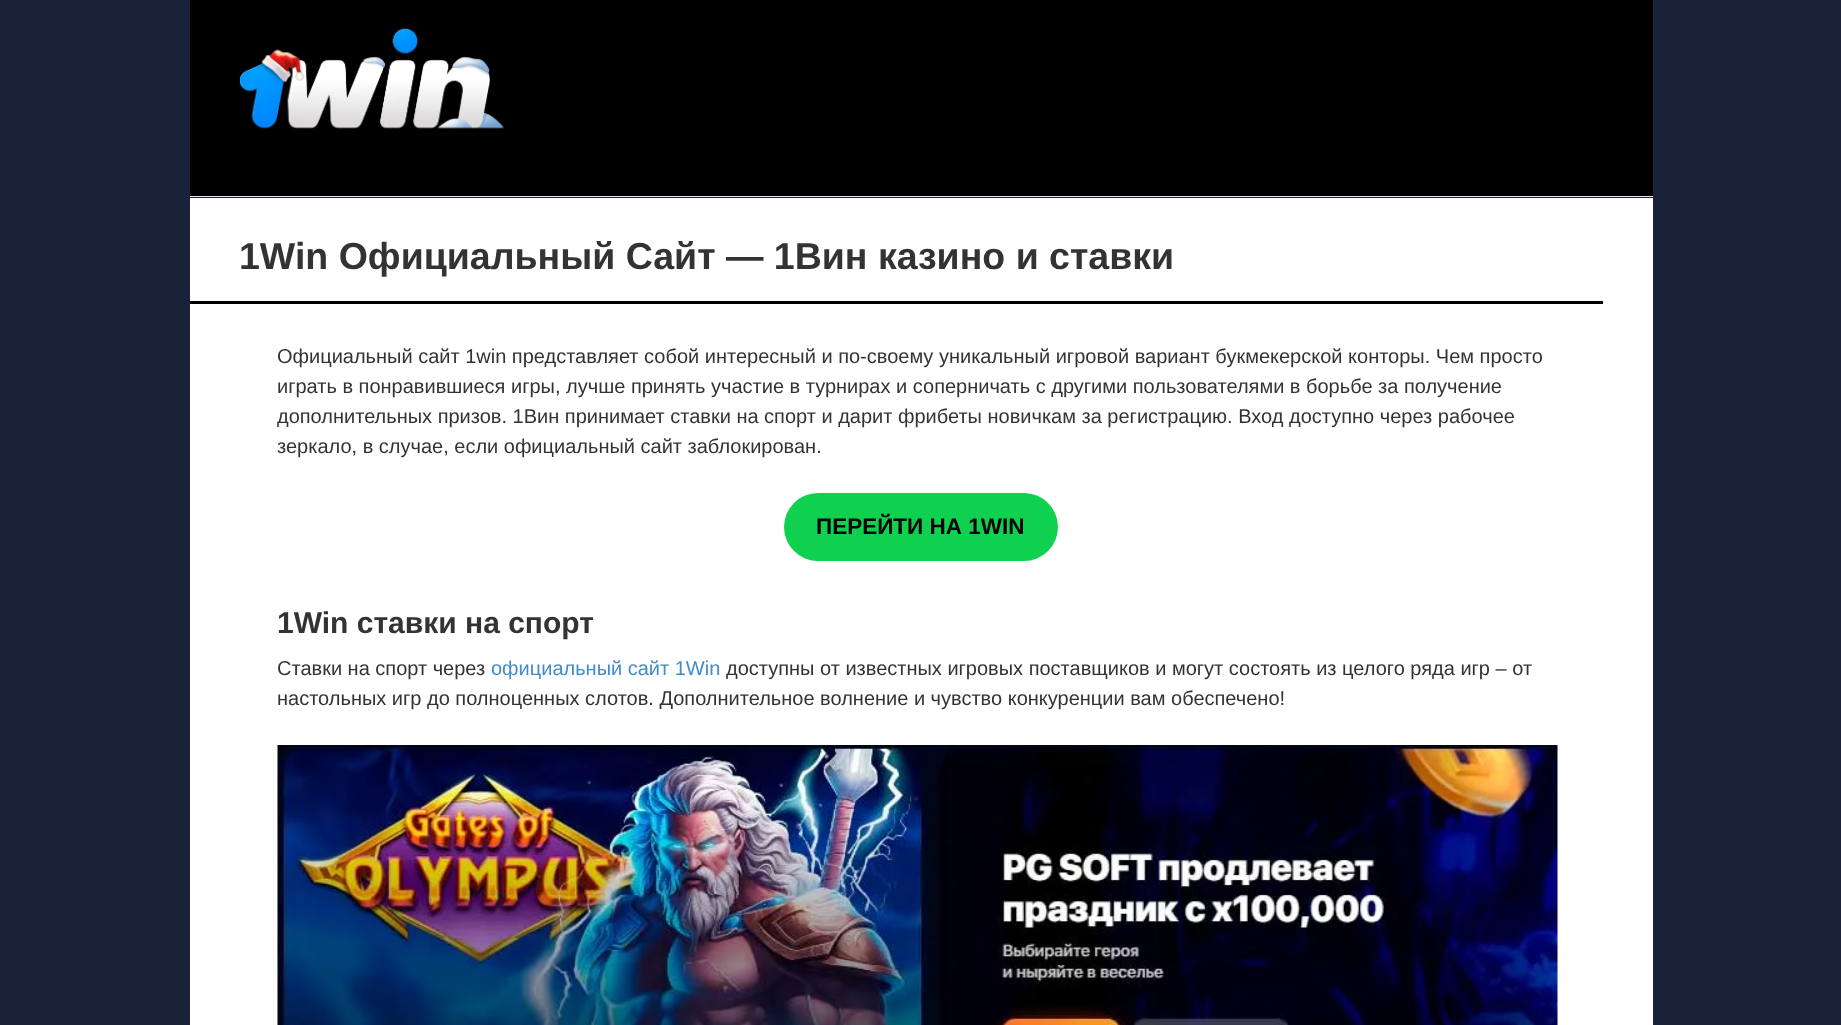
<!DOCTYPE html>
<meta charset="utf-8">
<style>body { margin: 0 } canvas { display: block }</style>
<canvas id="canvas" width="1841" height="1025"></canvas>
<img id="img1" src="img_01.png" hidden>
<img id="img2" src="img_02.png" hidden>
<script>
window.onload = function () {
	const canvas = document.getElementById("canvas");
	const ctx = canvas.getContext("2d");
	ctx.miterLimit = 4;
	ctx.fontKerning = "normal";
	function txt(s, x, y) {
		ctx.fillText(s, x, y);
	}
	function fill(x, y, w, h) {
		ctx.fillRect(x, y, w, h);
	}
	function round(x, y, w, h, r) {
		ctx.beginPath();
		ctx.roundRect(x, y, w, h, r);
		ctx.fill();
	}
	function img(id, x, y, w, h) {
		ctx.drawImage(document.getElementById(id), x, y, w, h);
	}

	ctx.fillStyle = "#192238";
	fill(0, 0, 1841, 1025);
	ctx.fillStyle = "#000000";
	fill(190, 0, 1463, 196);
	img("img1", 240, 27, 264, 104);
	ctx.fillStyle = "#ECECEC";
	fill(190, 196, 1463, 1);
	ctx.fillStyle = "#FFFFFF";
	fill(190, 198, 1463, 827);
	ctx.fillStyle = "#000000";
	fill(190, 301, 1413, 3);
	ctx.fillStyle = "#10D14F";
	round(784, 493, 274, 68, 34);
	img("img2", 277, 745, 1281, 280);
	ctx.font = "bold 37.5px Liberation Sans";
	ctx.fillStyle = "#333333";
	txt("1Win Официальный Сайт — 1Вин казино и ставки", 239, 269);
	ctx.font = "20px Liberation Sans";
	txt("Официальный сайт 1win представляет собой интересный и по-своему уникальный игровой вариант букмекерской конторы. Чем просто", 277, 363);
	txt("играть в понравившиеся игры, лучше принять участие в турнирах и соперничать с другими пользователями в борьбе за получение", 277, 393);
	txt("дополнительных призов. 1Вин принимает ставки на спорт и дарит фрибеты новичкам за регистрацию. Вход доступно через рабочее", 277, 423);
	txt("зеркало, в случае, если официальный сайт заблокирован.", 277, 453);
	ctx.font = "bold 22.5px Liberation Sans";
	ctx.fillStyle = "#000000";
	txt("ПЕРЕЙТИ НА 1WIN", 816, 534);
	ctx.font = "bold 30px Liberation Sans";
	ctx.fillStyle = "#333333";
	txt("1Win ставки на спорт", 277, 633);
	ctx.font = "20px Liberation Sans";
	txt("Ставки на спорт через", 277, 675);
	ctx.fillStyle = "#428BCA";
	txt("официальный сайт 1Win", 491, 675);
	ctx.fillStyle = "#333333";
	txt("доступны от известных игровых поставщиков и могут состоять из целого ряда игр – от", 726, 675);
	txt("настольных игр до полноценных слотов. Дополнительное волнение и чувство конкуренции вам обеспечено!", 277, 705);
};
</script>
